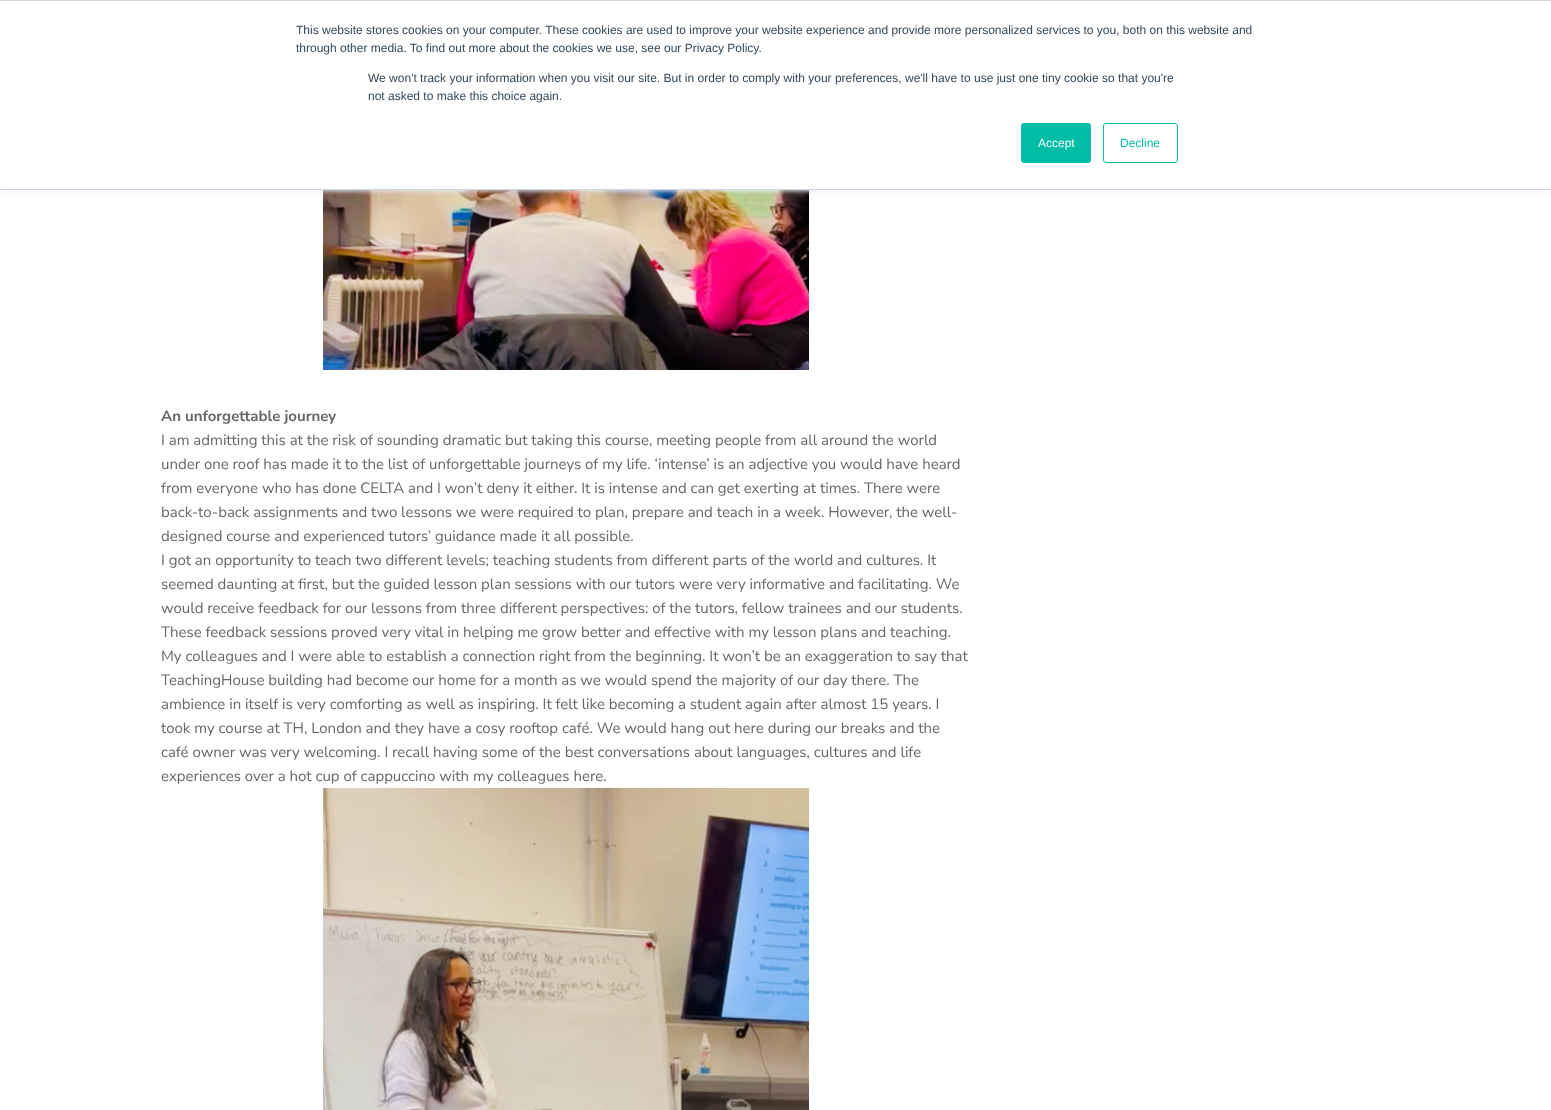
<!DOCTYPE html>
<meta charset="utf-8">
<style>body { margin: 0 } canvas { display: block }</style>
<canvas id="canvas" width="1551" height="1110"></canvas>
<img id="img1" src="img_01.png" hidden>
<img id="img2" src="img_02.png" hidden>
<script>
window.onload = function () {
	const canvas = document.getElementById("canvas");
	const ctx = canvas.getContext("2d");
	ctx.miterLimit = 4;
	ctx.fontKerning = "normal";
	function txt(s, x, y) {
		ctx.fillText(s, x, y);
	}
	function fill(x, y, w, h) {
		ctx.fillRect(x, y, w, h);
	}
	function img(id, x, y, w, h) {
		ctx.drawImage(document.getElementById(id), x, y, w, h);
	}

	ctx.fillStyle = "#FFFFFF";
	fill(0, 0, 1551, 1110);
	img("img1", 323, 190, 486, 180);
	ctx.fillStyle = "#EAF0F6";
	ctx.filter = "blur(2.5px)";
	ctx.beginPath();
	ctx.rect(0, 1, 1551, 190);
	ctx.fill();
	ctx.filter = "none";
	ctx.fillStyle = "#FFFFFF";
	fill(0, 1, 1551, 188);
	ctx.fillStyle = "#CBD6E2";
	fill(0, 0, 1551, 1);
	fill(0, 189, 1551, 1);
	ctx.fillStyle = "#00BDA5";
	ctx.beginPath();
	ctx.roundRect(1021.5, 123.5, 69, 39, 2.5);
	ctx.fill();
	ctx.strokeStyle = "#00BDA5";
	ctx.stroke();
	ctx.beginPath();
	ctx.roundRect(1103.5, 123.5, 74, 39, 2.5);
	ctx.stroke();
	img("img2", 323, 788, 486, 322);
	ctx.font = "12px Liberation Sans";
	ctx.fillStyle = "#33475B";
	txt("This website stores cookies on your computer. These cookies are used to improve your website experience and provide more personalized services to you, both on this website and", 296, 34);
	txt("through other media. To find out more about the cookies we use, see our Privacy Policy.", 296, 52);
	txt("We won't track your information when you visit our site. But in order to comply with your preferences, we'll have to use just one tiny cookie so that you're", 368, 82);
	txt("not asked to make this choice again.", 368, 100);
	ctx.fillStyle = "#FFFFFF";
	txt("Accept", 1038, 147);
	ctx.fillStyle = "#00BDA5";
	txt("Decline", 1120, 147);
	ctx.font = "bold 15px Nunito Sans";
	ctx.fillStyle = "#666666";
	txt("An unforgettable journey", 161, 421);
	ctx.font = "15px Nunito Sans";
	txt("I am admitting this at the risk of sounding dramatic but taking this course, meeting people from all around the world", 161, 445);
	txt("under one roof has made it to the list of unforgettable journeys of my life. ‘intense’ is an adjective you would have heard", 161, 469);
	txt("from everyone who has done CELTA and I won’t deny it either. It is intense and can get exerting at times. There were", 161, 493);
	txt("back-to-back assignments and two lessons we were required to plan, prepare and teach in a week. However, the well-", 161, 517);
	txt("designed course and experienced tutors’ guidance made it all possible.", 161, 541);
	txt("I got an opportunity to teach two different levels; teaching students from different parts of the world and cultures. It", 161, 565);
	txt("seemed daunting at first, but the guided lesson plan sessions with our tutors were very informative and facilitating. We", 161, 589);
	txt("would receive feedback for our lessons from three different perspectives: of the tutors, fellow trainees and our students.", 161, 613);
	txt("These feedback sessions proved very vital in helping me grow better and effective with my lesson plans and teaching.", 161, 637);
	txt("My colleagues and I were able to establish a connection right from the beginning. It won’t be an exaggeration to say that", 161, 661);
	txt("TeachingHouse building had become our home for a month as we would spend the majority of our day there. The", 161, 685);
	txt("ambience in itself is very comforting as well as inspiring. It felt like becoming a student again after almost 15 years. I", 161, 709);
	txt("took my course at TH, London and they have a cosy rooftop café. We would hang out here during our breaks and the", 161, 733);
	txt("café owner was very welcoming. I recall having some of the best conversations about languages, cultures and life", 161, 757);
	txt("experiences over a hot cup of cappuccino with my colleagues here.", 161, 781);
};
</script>
